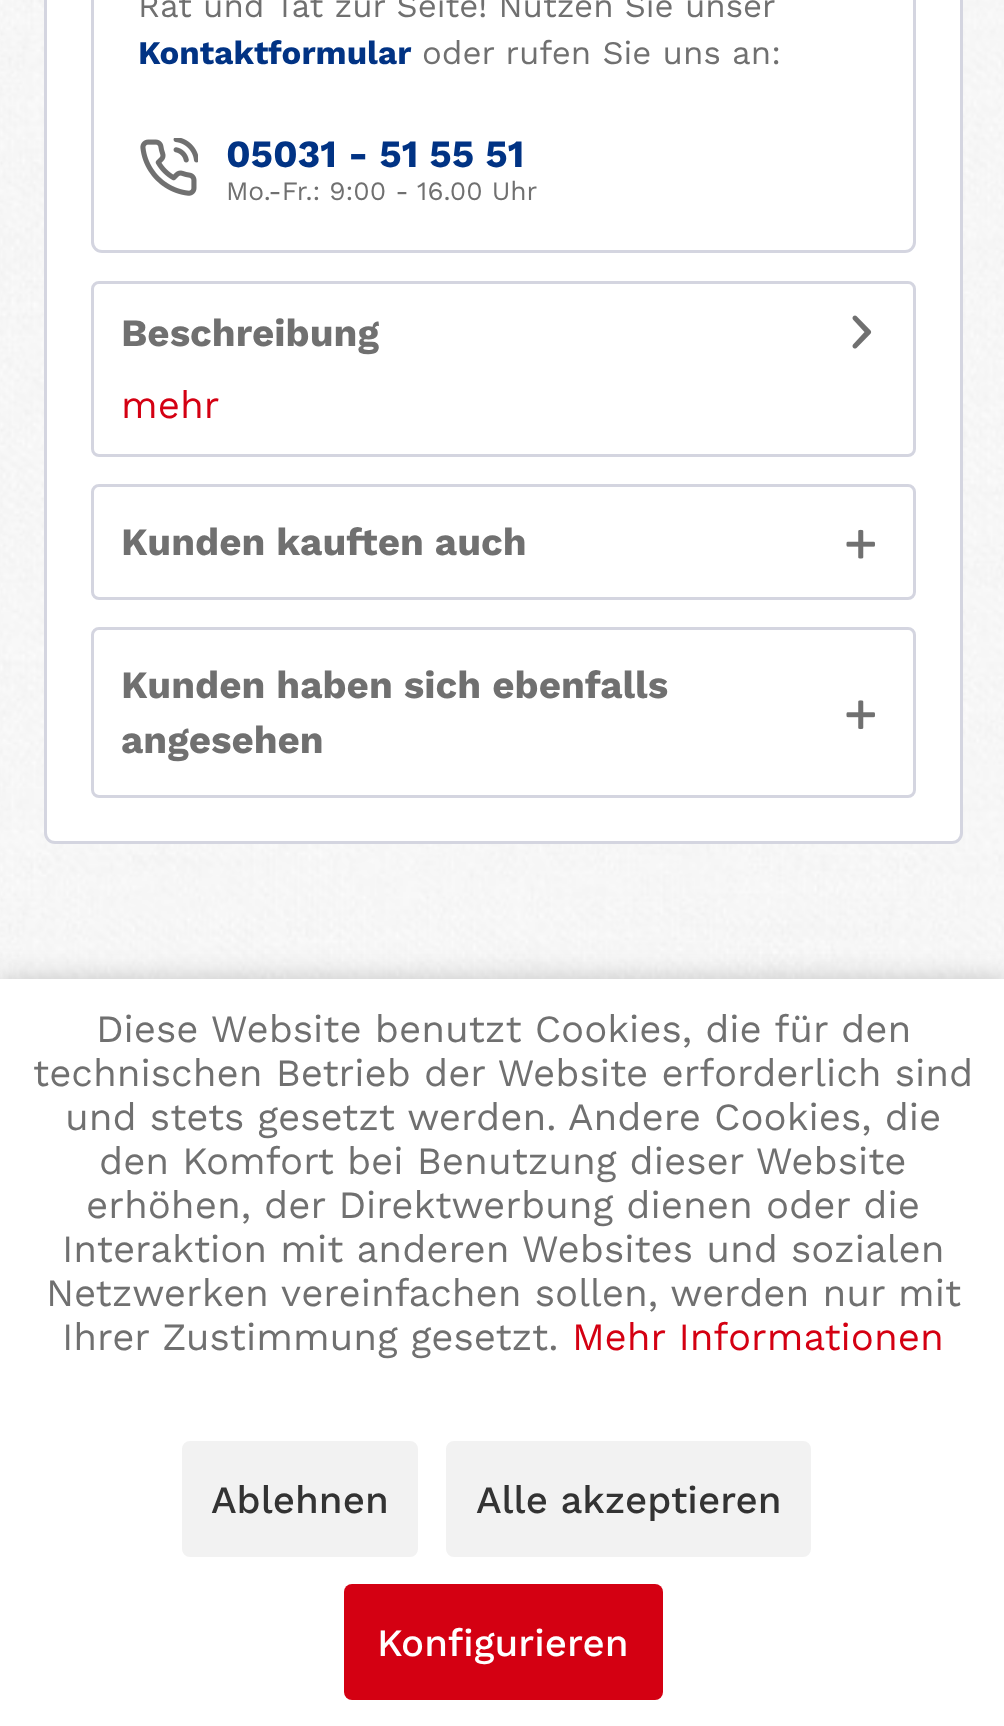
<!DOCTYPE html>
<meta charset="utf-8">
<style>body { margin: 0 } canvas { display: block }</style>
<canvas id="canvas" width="1004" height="1726"></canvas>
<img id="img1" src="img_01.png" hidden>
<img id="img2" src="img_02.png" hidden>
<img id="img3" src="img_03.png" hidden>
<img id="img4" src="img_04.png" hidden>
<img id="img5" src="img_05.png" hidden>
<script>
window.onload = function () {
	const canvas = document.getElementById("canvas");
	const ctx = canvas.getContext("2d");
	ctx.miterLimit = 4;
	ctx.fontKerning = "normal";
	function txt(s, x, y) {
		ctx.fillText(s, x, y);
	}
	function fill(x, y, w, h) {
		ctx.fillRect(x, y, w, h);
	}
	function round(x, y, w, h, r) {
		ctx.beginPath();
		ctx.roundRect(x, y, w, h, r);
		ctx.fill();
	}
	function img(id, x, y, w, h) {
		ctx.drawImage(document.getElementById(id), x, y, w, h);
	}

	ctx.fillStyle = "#FFFFFF";
	fill(0, 0, 1004, 1726);
	img("img1", 0, 0, 1004, 979);
	ctx.beginPath();
	ctx.roundRect(45.5, -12.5, 916, 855, 9.5);
	ctx.fill();
	ctx.strokeStyle = "#D4D5E0";
	ctx.lineWidth = 3;
	ctx.stroke();
	ctx.beginPath();
	ctx.roundRect(92.5, -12.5, 822, 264, 9.5);
	ctx.stroke();
	img("img2", 140, 138, 58, 58);
	ctx.beginPath();
	ctx.roundRect(92.5, 282.5, 822, 173, 6.5);
	ctx.stroke();
	img("img3", 852, 315, 20, 34);
	ctx.beginPath();
	ctx.roundRect(92.5, 485.5, 822, 113, 6.5);
	ctx.stroke();
	img("img4", 846, 529, 29, 30);
	ctx.beginPath();
	ctx.roundRect(92.5, 628.5, 822, 168, 6.5);
	ctx.stroke();
	img("img5", 846, 700, 29, 30);
	ctx.fillStyle = "rgba(0, 0, 0, 0.2)";
	ctx.filter = "blur(14px)";
	ctx.beginPath();
	ctx.rect(0, 979, 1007, 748);
	ctx.fill();
	ctx.filter = "none";
	ctx.fillStyle = "#FFFFFF";
	fill(0, 979, 1004, 747);
	ctx.fillStyle = "#F2F2F2";
	ctx.beginPath();
	ctx.roundRect(183.5, 1442.5, 233, 113, 6.5);
	ctx.fill();
	ctx.strokeStyle = "#F2F2F2";
	ctx.stroke();
	ctx.beginPath();
	ctx.roundRect(447.5, 1442.5, 362, 113, 6.5);
	ctx.fill();
	ctx.stroke();
	ctx.fillStyle = "#D40012";
	round(344, 1584, 319, 116, 8);
	ctx.font = "33px Work Sans";
	ctx.fillStyle = "#707070";
	txt("Rat und Tat zur Seite! Nutzen Sie unser", 138, 17);
	ctx.font = "bold 33px Work Sans";
	ctx.fillStyle = "#013384";
	txt("Kontaktformular", 138, 64);
	ctx.font = "33px Work Sans";
	ctx.fillStyle = "#707070";
	txt("oder rufen Sie uns an:", 422, 64);
	ctx.font = "bold 38.5px Work Sans";
	ctx.fillStyle = "#013384";
	txt("05031 - 51 55 51", 226, 167);
	ctx.font = "26.4px Work Sans";
	ctx.fillStyle = "#707070";
	txt("Mo.-Fr.: 9:00 - 16.00 Uhr", 226, 200);
	ctx.font = "bold 38.5px Work Sans";
	txt("Beschreibung", 121, 346);
	ctx.font = "38.5px Work Sans";
	ctx.fillStyle = "#D40012";
	txt("mehr", 121, 418);
	ctx.font = "bold 38.5px Work Sans";
	ctx.fillStyle = "#707070";
	txt("Kunden kauften auch", 121, 555);
	txt("Kunden haben sich ebenfalls", 121, 698);
	txt("angesehen", 121, 753);
	ctx.font = "38.5px Work Sans";
	txt("Diese Website benutzt Cookies, die für den", 96, 1042);
	txt("technischen Betrieb der Website erforderlich sind", 33, 1086);
	txt("und stets gesetzt werden. Andere Cookies, die", 65, 1130);
	txt("den Komfort bei Benutzung dieser Website", 99, 1174);
	txt("erhöhen, der Direktwerbung dienen oder die", 86, 1218);
	txt("Interaktion mit anderen Websites und sozialen", 62, 1262);
	txt("Netzwerken vereinfachen sollen, werden nur mit", 46, 1306);
	txt("Ihrer Zustimmung gesetzt.", 62, 1350);
	ctx.fillStyle = "#D40012";
	txt("Mehr Informationen", 572, 1350);
	ctx.font = "500 38.5px Work Sans";
	ctx.fillStyle = "#333333";
	txt("Ablehnen", 211, 1513);
	txt("Alle akzeptieren", 476, 1513);
	ctx.fillStyle = "#FFFFFF";
	txt("Konfigurieren", 377, 1656);
};
</script>
